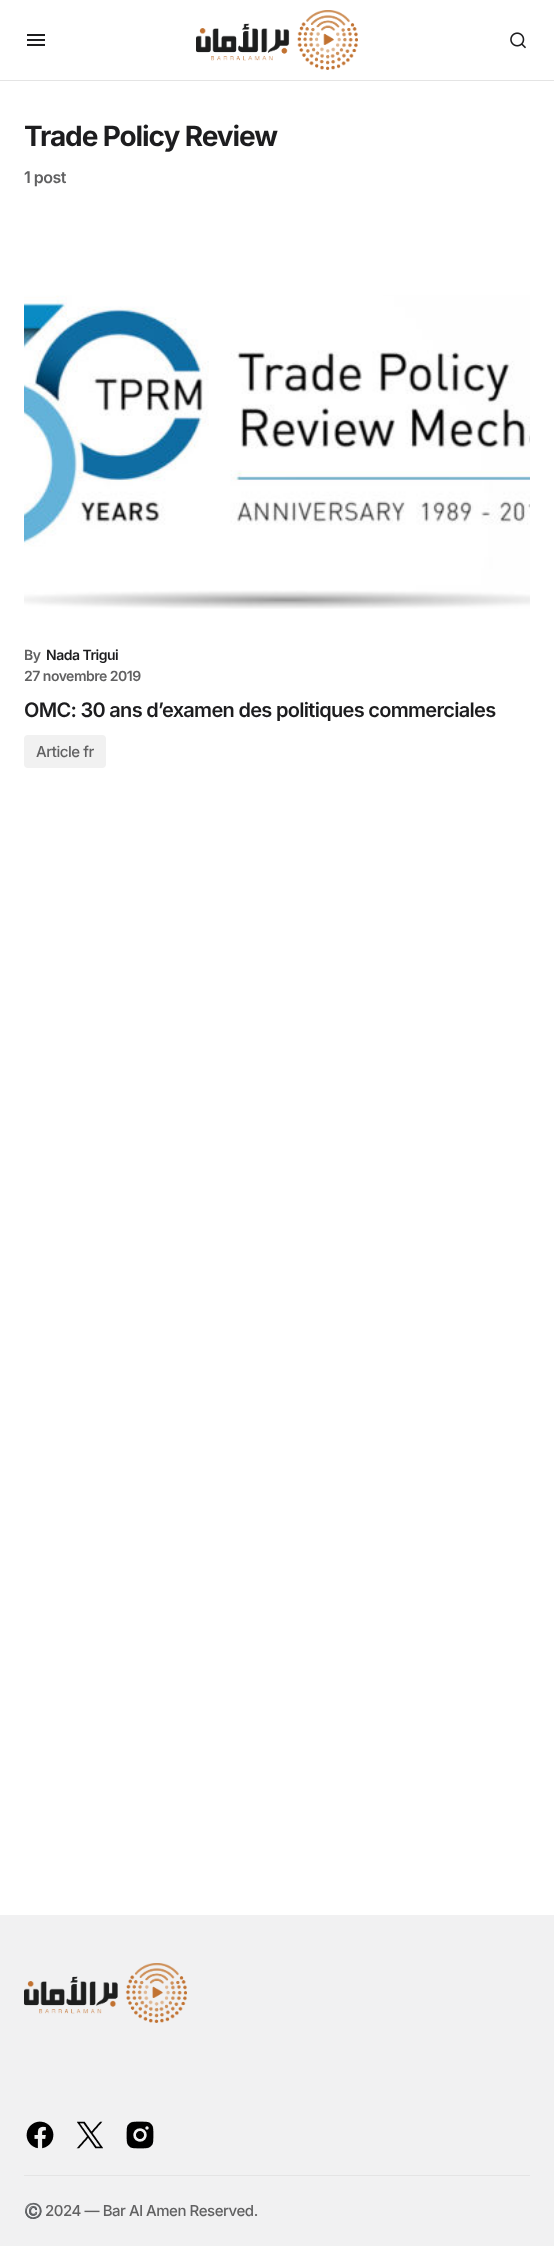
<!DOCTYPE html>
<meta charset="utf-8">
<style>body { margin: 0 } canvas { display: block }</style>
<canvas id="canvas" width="554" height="2246"></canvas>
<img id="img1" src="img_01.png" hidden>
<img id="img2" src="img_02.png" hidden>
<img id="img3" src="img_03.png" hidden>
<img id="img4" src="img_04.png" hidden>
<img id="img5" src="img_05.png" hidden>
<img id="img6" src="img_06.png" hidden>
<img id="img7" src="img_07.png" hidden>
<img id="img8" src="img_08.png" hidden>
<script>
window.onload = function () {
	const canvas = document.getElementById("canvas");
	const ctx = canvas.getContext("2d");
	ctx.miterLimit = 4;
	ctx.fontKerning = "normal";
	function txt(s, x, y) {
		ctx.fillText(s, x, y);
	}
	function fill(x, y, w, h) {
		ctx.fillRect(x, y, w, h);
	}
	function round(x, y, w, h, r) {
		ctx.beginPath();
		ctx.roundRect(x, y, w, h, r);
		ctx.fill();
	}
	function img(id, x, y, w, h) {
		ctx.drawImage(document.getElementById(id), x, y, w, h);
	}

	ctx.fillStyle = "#FFFFFF";
	fill(0, 0, 554, 2246);
	img("img1", 27, 34, 18, 12);
	img("img2", 196, 10, 162, 60);
	img("img3", 510, 32, 16, 17);
	ctx.fillStyle = "#E4E4E4";
	fill(0, 80, 554, 1);
	img("img4", 24, 295, 506, 314);
	ctx.fillStyle = "#F1F1F1";
	round(24, 735, 82, 33, 4);
	ctx.fillStyle = "#F1F1F2";
	fill(0, 1915, 554, 331);
	img("img5", 24, 1963, 163, 60);
	img("img6", 26, 2121, 28, 28);
	img("img7", 76, 2121, 27, 28);
	img("img8", 126, 2121, 28, 28);
	ctx.fillStyle = "#E4E4E4";
	fill(24, 2175, 506, 1);
	ctx.letterSpacing = "-1.1px";
	ctx.font = "bold 28px Inter";
	ctx.fillStyle = "#1D1D1F";
	txt("Trade Policy Review", 24, 146);
	ctx.letterSpacing = "-0.5px";
	ctx.font = "600 16px Inter";
	ctx.fillStyle = "#616162";
	txt("1 post", 24, 183);
	ctx.font = "600 14px Inter";
	txt("By", 24, 660);
	ctx.fillStyle = "#1D1D1F";
	txt("Nada Trigui", 46, 660);
	ctx.fillStyle = "#616162";
	txt("27 novembre 2019", 24, 681);
	ctx.letterSpacing = "-0.7px";
	ctx.font = "600 20px Inter";
	ctx.fillStyle = "#1D1D1F";
	txt("OMC: 30 ans d’examen des politiques commerciales", 24, 717);
	ctx.letterSpacing = "-0.45px";
	ctx.font = "500 15px Inter";
	ctx.fillStyle = "#616162";
	txt("Article fr", 36, 757);
	ctx.font = "15px Noto Color Emoji";
	txt("©️", 24, 2216);
	ctx.font = "500 15px Inter";
	txt("2024 — Bar Al Amen Reserved.", 45, 2216);
};
</script>
